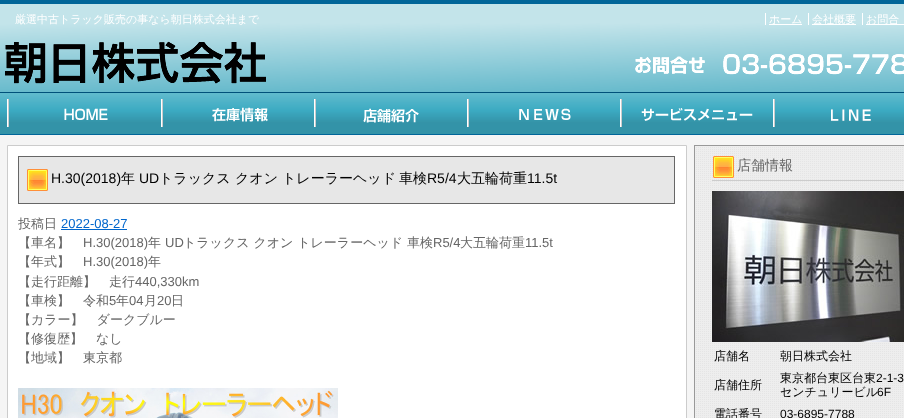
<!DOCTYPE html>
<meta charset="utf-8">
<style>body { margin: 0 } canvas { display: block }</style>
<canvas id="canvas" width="904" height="418"></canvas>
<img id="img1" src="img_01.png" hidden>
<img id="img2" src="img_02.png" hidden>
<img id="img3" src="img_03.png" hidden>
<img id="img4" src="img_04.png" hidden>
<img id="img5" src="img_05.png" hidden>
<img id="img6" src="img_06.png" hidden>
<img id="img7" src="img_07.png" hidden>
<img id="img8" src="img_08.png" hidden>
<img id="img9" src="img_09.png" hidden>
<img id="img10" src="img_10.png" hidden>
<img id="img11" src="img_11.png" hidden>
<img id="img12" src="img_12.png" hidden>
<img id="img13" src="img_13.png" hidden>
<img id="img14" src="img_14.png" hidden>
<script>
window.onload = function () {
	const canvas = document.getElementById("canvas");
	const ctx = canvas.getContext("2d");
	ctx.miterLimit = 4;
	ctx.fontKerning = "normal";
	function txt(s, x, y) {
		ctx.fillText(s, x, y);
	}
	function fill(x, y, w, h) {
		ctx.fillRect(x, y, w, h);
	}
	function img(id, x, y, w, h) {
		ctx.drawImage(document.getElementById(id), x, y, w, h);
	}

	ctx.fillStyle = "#F5F5F5";
	fill(0, 0, 904, 418);
	img("img1", 0, 0, 904, 135);
	ctx.fillStyle = "#FFFFFF";
	fill(765, 13, 1, 12);
	fill(769, 24, 33, 1);
	fill(808, 13, 1, 12);
	fill(812, 24, 44, 1);
	fill(862, 13, 1, 12);
	fill(866, 24, 38, 1);
	img("img2", 5, 41, 261, 43);
	img("img3", 635, 54, 269, 21);
	img("img4", 7, 99, 155, 28);
	img("img5", 162, 99, 154, 28);
	img("img6", 363, 99, 105, 28);
	img("img7", 468, 99, 153, 28);
	img("img8", 621, 99, 132, 28);
	img("img9", 773, 99, 98, 28);
	ctx.beginPath();
	ctx.rect(7.5, 145.5, 679, 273);
	ctx.fill();
	ctx.strokeStyle = "#CCCCCC";
	ctx.stroke();
	img("img10", 18, 156, 657, 48);
	ctx.fillStyle = "#0066CC";
	fill(61, 229, 66, 1);
	img("img11", 18, 388, 320, 30);
	img("img12", 695, 146, 209, 272);
	ctx.strokeStyle = "#999999";
	ctx.strokeRect(694.5, 145.5, 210, 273);
	img("img13", 712, 156, 192, 25);
	img("img14", 712, 191, 192, 151);
	ctx.font = "500 11px WenQuanYi Zen Hei";
	ctx.fillStyle = "#FFFFFF";
	txt("厳選中古トラック販売の事なら朝日株式会社まで", 15, 23);
	txt("ホーム", 769, 23);
	txt("会社概要", 812, 23);
	txt("お問合", 866, 23);
	ctx.font = "14px Liberation Sans";
	ctx.fillStyle = "#000000";
	txt("H.30(2018)", 51, 183);
	ctx.font = "500 14px WenQuanYi Zen Hei";
	txt("年", 121, 183);
	ctx.font = "14px Liberation Sans";
	txt("UD", 139, 183);
	ctx.font = "500 14px WenQuanYi Zen Hei";
	txt("トラックス", 159, 183);
	txt("クオン", 235, 183);
	txt("トレーラーヘッド", 282, 183);
	txt("車検", 399, 183);
	ctx.font = "14px Liberation Sans";
	txt("R5/4", 427, 183);
	ctx.font = "500 14px WenQuanYi Zen Hei";
	txt("大五輪荷重", 457, 183);
	ctx.font = "14px Liberation Sans";
	txt("11.5t", 527, 183);
	ctx.font = "500 13px WenQuanYi Zen Hei";
	ctx.fillStyle = "#666666";
	txt("投稿日", 18, 228);
	ctx.font = "13px Liberation Sans";
	ctx.fillStyle = "#0066CC";
	txt("2022-08-27", 61, 228);
	ctx.font = "500 13px WenQuanYi Zen Hei";
	ctx.fillStyle = "#666666";
	txt("【車名】", 18, 247);
	ctx.font = "13px Liberation Sans";
	txt("H.30(2018)", 83, 247);
	ctx.font = "500 13px WenQuanYi Zen Hei";
	txt("年", 148, 247);
	ctx.font = "13px Liberation Sans";
	txt("UD", 165, 247);
	ctx.font = "500 13px WenQuanYi Zen Hei";
	txt("トラックス クオン トレーラーヘッド 車検", 183, 247);
	ctx.font = "13px Liberation Sans";
	txt("R5/4", 433, 247);
	ctx.font = "500 13px WenQuanYi Zen Hei";
	txt("大五輪荷重", 460, 247);
	ctx.font = "13px Liberation Sans";
	txt("11.5t", 525, 247);
	ctx.font = "500 13px WenQuanYi Zen Hei";
	txt("【年式】", 18, 266);
	ctx.font = "13px Liberation Sans";
	txt("H.30(2018)", 83, 266);
	ctx.font = "500 13px WenQuanYi Zen Hei";
	txt("年", 148, 266);
	txt("【走行距離】　走行", 18, 286);
	ctx.font = "13px Liberation Sans";
	txt("440,330km", 135, 286);
	ctx.font = "500 13px WenQuanYi Zen Hei";
	txt("【車検】　令和", 18, 305);
	ctx.font = "13px Liberation Sans";
	txt("5", 109, 305);
	ctx.font = "500 13px WenQuanYi Zen Hei";
	txt("年", 116, 305);
	ctx.font = "13px Liberation Sans";
	txt("04", 129, 305);
	ctx.font = "500 13px WenQuanYi Zen Hei";
	txt("月", 144, 305);
	ctx.font = "13px Liberation Sans";
	txt("20", 157, 305);
	ctx.font = "500 13px WenQuanYi Zen Hei";
	txt("日", 171, 305);
	txt("【カラー】　ダークブルー", 18, 324);
	txt("【修復歴】　なし", 18, 343);
	txt("【地域】　東京都", 18, 362);
	ctx.font = "500 14px WenQuanYi Zen Hei";
	txt("店舗情報", 737, 170);
	ctx.font = "500 12px WenQuanYi Zen Hei";
	ctx.fillStyle = "#000000";
	txt("店舗名", 714, 360);
	txt("朝日株式会社", 780, 360);
	txt("店舗住所", 714, 389);
	txt("東京都台東区台東", 780, 382);
	ctx.font = "12px Liberation Sans";
	txt("2-1-3", 876, 382);
	ctx.font = "500 12px WenQuanYi Zen Hei";
	txt("センチュリービル", 780, 396);
	ctx.font = "12px Liberation Sans";
	txt("6F", 877, 396);
	ctx.font = "500 12px WenQuanYi Zen Hei";
	txt("電話番号", 714, 418);
	ctx.font = "12px Liberation Sans";
	txt("03-6895-7788", 780, 418);
};
</script>
